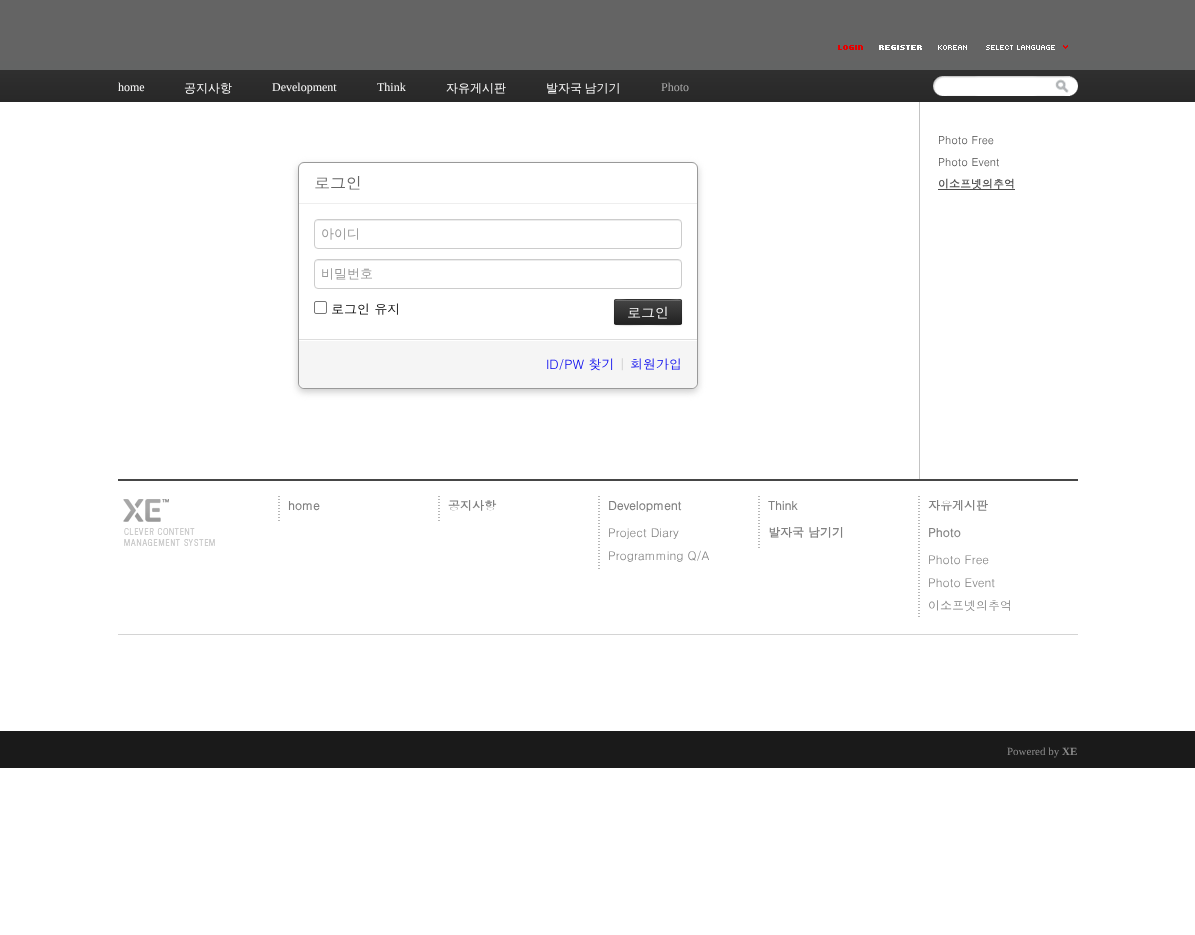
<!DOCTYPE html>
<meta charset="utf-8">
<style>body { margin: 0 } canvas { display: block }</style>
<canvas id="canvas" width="1195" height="935"></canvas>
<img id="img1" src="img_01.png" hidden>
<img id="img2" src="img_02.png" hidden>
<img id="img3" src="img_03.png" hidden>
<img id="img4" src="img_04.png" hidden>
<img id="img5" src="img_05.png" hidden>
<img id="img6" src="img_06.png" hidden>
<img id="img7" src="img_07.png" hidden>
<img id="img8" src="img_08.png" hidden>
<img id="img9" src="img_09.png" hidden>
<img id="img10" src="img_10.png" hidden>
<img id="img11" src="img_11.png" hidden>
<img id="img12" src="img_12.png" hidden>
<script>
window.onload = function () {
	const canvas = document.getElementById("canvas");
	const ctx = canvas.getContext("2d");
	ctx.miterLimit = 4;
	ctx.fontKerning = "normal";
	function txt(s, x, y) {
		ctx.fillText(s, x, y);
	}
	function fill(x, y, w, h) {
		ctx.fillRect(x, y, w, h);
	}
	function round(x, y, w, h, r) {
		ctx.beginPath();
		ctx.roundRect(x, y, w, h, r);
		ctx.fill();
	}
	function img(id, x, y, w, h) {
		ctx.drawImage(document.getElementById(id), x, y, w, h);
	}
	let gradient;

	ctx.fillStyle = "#FFFFFF";
	fill(0, 0, 1195, 935);
	img("img1", 0, 0, 1195, 102);
	ctx.fillStyle = "#1A1A1A";
	fill(0, 731, 1195, 37);
	img("img2", 838, 45, 25, 5);
	img("img3", 879, 45, 43, 5);
	img("img4", 938, 45, 29, 5);
	img("img5", 986, 45, 69, 5);
	img("img6", 1063, 45, 5, 4);
	img("img7", 933, 76, 145, 20);
	img("img8", 1055, 79, 14, 14);
	ctx.fillStyle = "#C3C3C3";
	fill(919, 102, 1, 377);
	ctx.fillStyle = "#4D4D4D";
	fill(938, 189, 77, 1);
	ctx.fillStyle = "#CCCCCC";
	ctx.filter = "blur(3.5px)";
	ctx.beginPath();
	ctx.roundRect(298, 165, 400, 227, 6);
	ctx.fill();
	ctx.filter = "none";
	ctx.fillStyle = "#FFFFFF";
	ctx.beginPath();
	ctx.roundRect(298.5, 162.5, 399, 226, 5.5);
	ctx.fill();
	ctx.strokeStyle = "#999999";
	ctx.stroke();
	ctx.fillStyle = "#EEEEEE";
	fill(299, 203, 398, 1);
	ctx.fillStyle = "#ECECEC";
	ctx.beginPath();
	ctx.moveTo(318, 221);
	ctx.lineTo(678, 221);
	ctx.bezierCurveTo(680, 221, 681, 222, 681, 224);
	ctx.bezierCurveTo(681, 222, 680, 220, 678, 220);
	ctx.lineTo(318, 220);
	ctx.lineTo(316, 221);
	ctx.lineTo(315, 224);
	ctx.bezierCurveTo(315, 222, 316, 221, 318, 221);
	ctx.closePath();
	ctx.fill();
	ctx.beginPath();
	ctx.roundRect(314.5, 219.5, 367, 29, 3.5);
	ctx.strokeStyle = "#CCCCCC";
	ctx.stroke();
	ctx.beginPath();
	ctx.moveTo(318, 261);
	ctx.lineTo(678, 261);
	ctx.bezierCurveTo(680, 261, 681, 262, 681, 264);
	ctx.bezierCurveTo(681, 262, 680, 260, 678, 260);
	ctx.lineTo(318, 260);
	ctx.lineTo(316, 261);
	ctx.lineTo(315, 264);
	ctx.bezierCurveTo(315, 262, 316, 261, 318, 261);
	ctx.closePath();
	ctx.fill();
	ctx.beginPath();
	ctx.roundRect(314.5, 259.5, 367, 29, 3.5);
	ctx.stroke();
	ctx.beginPath();
	ctx.roundRect(314.5, 301.5, 12, 12, 1.5);
	ctx.strokeStyle = "#767676";
	ctx.stroke();
	ctx.fillStyle = "rgba(0, 0, 0, 0.05)";
	ctx.filter = "blur(1px)";
	ctx.beginPath();
	ctx.roundRect(614, 300, 68, 26, 2);
	ctx.fill();
	ctx.filter = "none";
	ctx.fillStyle = "#363636";
	round(614, 299, 68, 26, 2);
	ctx.save();
	ctx.beginPath();
	ctx.roundRect(614, 299, 68, 26, 2);
	ctx.clip();
	gradient = ctx.createLinearGradient(648, 300, 648, 324);
	gradient.addColorStop(0, "#444444");
	gradient.addColorStop(1, "#222222");
	ctx.fillStyle = gradient;
	fill(614, 300, 68, 24);
	ctx.restore();
	ctx.fillStyle = "rgba(255, 255, 255, 0.2)";
	ctx.beginPath();
	ctx.moveTo(616, 301);
	ctx.lineTo(680, 301);
	ctx.bezierCurveTo(681, 301, 681, 301, 681, 302);
	ctx.bezierCurveTo(681, 297, 673, 300, 669, 300);
	ctx.lineTo(627, 300);
	ctx.bezierCurveTo(623, 300, 615, 297, 615, 302);
	ctx.bezierCurveTo(615, 301, 615, 301, 616, 301);
	ctx.closePath();
	ctx.fill();
	ctx.beginPath();
	ctx.moveTo(681, 324);
	ctx.bezierCurveTo(680, 325.5, 651.5, 324.5, 648, 324.5);
	ctx.bezierCurveTo(644.5, 324.5, 616, 325.5, 615, 324);
	ctx.strokeStyle = "rgba(0, 0, 0, 0.25)";
	ctx.stroke();
	ctx.beginPath();
	ctx.moveTo(615, 324);
	ctx.bezierCurveTo(613.5, 322.5, 614.5, 314, 614.5, 312);
	ctx.bezierCurveTo(614.5, 297, 611.5, 299.5, 626.5, 299.5);
	ctx.lineTo(669.5, 299.5);
	ctx.bezierCurveTo(684.5, 299.5, 681.5, 297, 681.5, 312);
	ctx.bezierCurveTo(681.5, 314, 682.5, 322.5, 681, 324);
	ctx.strokeStyle = "rgba(0, 0, 0, 0.1)";
	ctx.stroke();
	ctx.fillStyle = "#F5F5F5";
	ctx.beginPath();
	ctx.roundRect(299, 339, 398, 49, [0, 0, 6, 6]);
	ctx.fill();
	ctx.fillStyle = "#FFFFFF";
	fill(299, 340, 398, 1);
	ctx.fillStyle = "#DDDDDD";
	fill(299, 339, 398, 1);
	ctx.fillStyle = "#464646";
	fill(118, 479, 960, 2);
	ctx.fillStyle = "#D4D4D4";
	fill(118, 634, 960, 1);
	img("img9", 123, 499, 92, 47);
	img("img10", 278, 496, 2, 25);
	img("img10", 438, 496, 2, 25);
	img("img11", 598, 496, 2, 73);
	img("img10", 758, 496, 2, 25);
	img("img10", 918, 496, 2, 25);
	img("img10", 758, 523, 2, 25);
	img("img12", 918, 523, 2, 94);
	ctx.font = "12px Liberation Serif";
	ctx.fillStyle = "#FFFFFF";
	txt("home", 118, 91);
	ctx.font = "500 12px WenQuanYi Zen Hei";
	txt("공지사항", 184, 92);
	ctx.font = "12px Liberation Serif";
	txt("Development", 272, 91);
	txt("Think", 377, 91);
	ctx.font = "500 12px WenQuanYi Zen Hei";
	txt("자유게시판", 446, 92);
	ctx.wordSpacing = "-1px";
	txt("발자국 남기기", 546, 92);
	ctx.wordSpacing = "0px";
	ctx.font = "12px Liberation Serif";
	ctx.fillStyle = "#AAAAAA";
	txt("Photo", 661, 91);
	ctx.font = "11px Dotum";
	ctx.fillStyle = "#4D4D4D";
	txt("Photo Free", 938, 144);
	txt("Photo Event", 938, 166);
	ctx.font = "bold 11px Dotum";
	txt("이소프넷의추억", 938, 188);
	ctx.font = "16px Dotum";
	ctx.fillStyle = "#666666";
	txt("로그인", 314, 189);
	ctx.font = "500 13px WenQuanYi Zen Hei";
	ctx.fillStyle = "#999999";
	txt("아이디", 321, 238);
	txt("비밀번호", 321, 278);
	ctx.font = "13px Dotum";
	ctx.fillStyle = "#000000";
	txt("로그인 유지", 331, 314);
	ctx.font = "14px Dotum";
	ctx.fillStyle = "#FFFFFF";
	txt("로그인", 627, 318);
	ctx.font = "13px Dotum";
	ctx.fillStyle = "#0000EE";
	txt("ID/PW 찾기", 546, 369);
	ctx.fillStyle = "#CCCCCC";
	txt("|", 619, 369);
	ctx.fillStyle = "#0000EE";
	txt("회원가입", 630, 369);
	ctx.font = "bold 12px Dotum";
	ctx.fillStyle = "#808080";
	txt("home", 288, 510);
	txt("공지사항", 448, 510);
	txt("Development", 608, 510);
	ctx.font = "12px Dotum";
	txt("Project Diary", 608, 537);
	txt("Programming Q/A", 608, 560);
	ctx.font = "bold 12px Dotum";
	txt("Think", 768, 510);
	txt("자유게시판", 928, 510);
	txt("발자국 남기기", 768, 537);
	txt("Photo", 928, 537);
	ctx.font = "12px Dotum";
	txt("Photo Free", 928, 564);
	txt("Photo Event", 928, 587);
	txt("이소프넷의추억", 928, 610);
	ctx.font = "11px Liberation Serif";
	ctx.fillStyle = "#8B8B8B";
	txt("Powered by", 1007, 755);
	ctx.font = "bold 11px Liberation Serif";
	txt("XE", 1062, 755);
};
</script>
